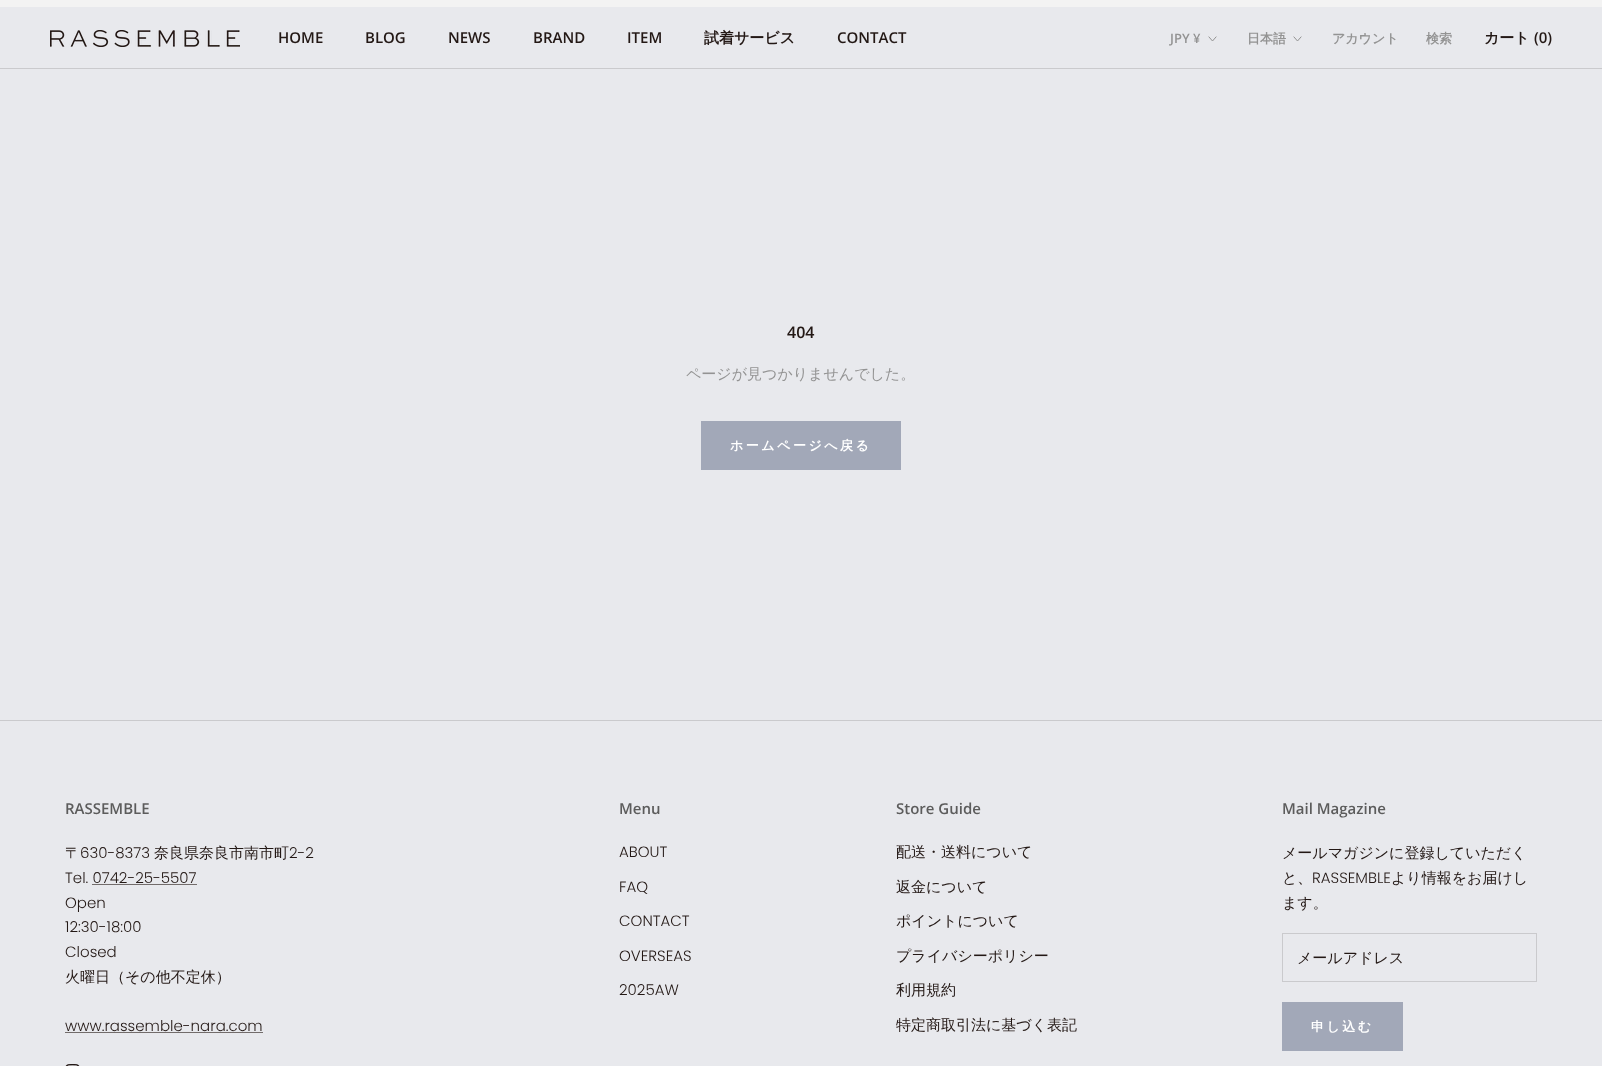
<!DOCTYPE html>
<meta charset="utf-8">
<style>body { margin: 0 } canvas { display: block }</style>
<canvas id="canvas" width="1602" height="1066"></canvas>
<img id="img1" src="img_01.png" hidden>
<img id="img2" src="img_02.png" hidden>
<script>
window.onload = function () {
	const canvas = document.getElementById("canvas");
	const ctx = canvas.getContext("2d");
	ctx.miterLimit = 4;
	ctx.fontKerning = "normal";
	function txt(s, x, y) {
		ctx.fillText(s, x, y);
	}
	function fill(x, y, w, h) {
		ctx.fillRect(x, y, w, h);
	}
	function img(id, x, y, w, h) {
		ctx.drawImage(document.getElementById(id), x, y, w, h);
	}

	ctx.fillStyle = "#E8E9ED";
	fill(0, 0, 1602, 1066);
	ctx.fillStyle = "#F3F3F3";
	fill(0, 0, 1602, 7);
	ctx.fillStyle = "#CACACD";
	fill(0, 68, 1602, 1);
	img("img1", 50, 30, 190, 17);
	ctx.beginPath();
	ctx.moveTo(1216, 37);
	ctx.lineTo(1212.5, 41);
	ctx.lineTo(1209, 37);
	ctx.strokeStyle = "#939393";
	ctx.lineCap = "square";
	ctx.stroke();
	ctx.beginPath();
	ctx.moveTo(1301, 37);
	ctx.lineTo(1297.5, 41);
	ctx.lineTo(1294, 37);
	ctx.stroke();
	ctx.strokeStyle = "#A2A8B8";
	ctx.strokeRect(701.5, 421.5, 199, 48);
	ctx.fillStyle = "#A2A8B8";
	fill(702, 422, 198, 47);
	ctx.fillStyle = "#CACACD";
	fill(0, 720, 1602, 1);
	ctx.fillStyle = "#726C6B";
	fill(92, 884, 105, 1);
	fill(65, 1032, 198, 1);
	img("img2", 65, 1064, 15, 2);
	ctx.strokeStyle = "#CACACD";
	ctx.strokeRect(1282.5, 933.5, 254, 48);
	ctx.strokeStyle = "#A2A8B8";
	ctx.strokeRect(1282.5, 1002.5, 120, 48);
	ctx.fillStyle = "#A2A8B8";
	fill(1283, 1003, 119, 47);
	ctx.font = "600 15px Open Sans";
	ctx.fillStyle = "#231815";
	txt("HOME", 278, 43);
	txt("BLOG", 365, 43);
	txt("NEWS", 448, 43);
	txt("BRAND", 533, 43);
	txt("ITEM", 627, 43);
	ctx.font = "bold 15px WenQuanYi Zen Hei";
	txt("試着サービス", 704, 43);
	ctx.font = "600 15px Open Sans";
	txt("CONTACT", 837, 43);
	ctx.font = "600 13px Open Sans";
	ctx.fillStyle = "#939393";
	txt("JPY ¥", 1170, 43);
	ctx.font = "bold 13px WenQuanYi Zen Hei";
	txt("日本語", 1247, 43);
	txt("アカウント", 1332, 43);
	txt("検索", 1426, 43);
	ctx.font = "bold 15px WenQuanYi Zen Hei";
	ctx.fillStyle = "#231815";
	txt("カート", 1484, 43);
	ctx.font = "600 15px Open Sans";
	txt("(0)", 1534, 43);
	ctx.font = "600 16px Open Sans";
	txt("404", 787, 338);
	ctx.font = "500 15px WenQuanYi Zen Hei";
	ctx.fillStyle = "#939393";
	txt("ページが見つかりませんでした。", 686, 379);
	ctx.letterSpacing = "2.5px";
	ctx.font = "bold 13px WenQuanYi Zen Hei";
	ctx.fillStyle = "#FFFFFF";
	txt("ホームページへ戻る", 730, 450);
	ctx.letterSpacing = "0px";
	ctx.font = "600 15px Open Sans";
	ctx.fillStyle = "#5C5C5C";
	txt("RASSEMBLE", 65, 814);
	ctx.font = "500 15px WenQuanYi Zen Hei";
	ctx.fillStyle = "#231815";
	txt("〒", 65, 858);
	ctx.font = "300 15px Poppins";
	txt("630-8373", 80, 858);
	ctx.font = "500 15px WenQuanYi Zen Hei";
	txt("奈良県奈良市南市町", 154, 858);
	ctx.font = "300 15px Poppins";
	txt("2-2", 289, 858);
	txt("Tel. 0742-25-5507", 65, 883);
	txt("Open", 65, 908);
	txt("12:30-18:00", 65, 932);
	txt("Closed", 65, 957);
	ctx.font = "500 15px WenQuanYi Zen Hei";
	txt("火曜日（その他不定休）", 65, 982);
	ctx.font = "300 15px Poppins";
	txt("www.rassemble-nara.com", 65, 1031);
	ctx.font = "600 15px Open Sans";
	ctx.fillStyle = "#5C5C5C";
	txt("Menu", 619, 814);
	ctx.font = "300 15px Poppins";
	ctx.fillStyle = "#231815";
	txt("ABOUT", 619, 857);
	txt("FAQ", 619, 892);
	txt("CONTACT", 619, 926);
	txt("OVERSEAS", 619, 961);
	txt("2025AW", 619, 995);
	ctx.font = "600 15px Open Sans";
	ctx.fillStyle = "#5C5C5C";
	txt("Store Guide", 896, 814);
	ctx.font = "500 15px WenQuanYi Zen Hei";
	ctx.fillStyle = "#231815";
	txt("配送・送料について", 896, 857);
	txt("返金について", 896, 892);
	txt("ポイントについて", 896, 926);
	txt("プライバシーポリシー", 896, 961);
	txt("利用規約", 896, 995);
	txt("特定商取引法に基づく表記", 896, 1030);
	ctx.font = "600 15px Open Sans";
	ctx.fillStyle = "#5C5C5C";
	txt("Mail Magazine", 1282, 814);
	ctx.font = "500 15px WenQuanYi Zen Hei";
	ctx.fillStyle = "#231815";
	txt("メールマガジンに登録していただく", 1282, 858);
	txt("と、", 1282, 883);
	ctx.font = "300 15px Poppins";
	txt("RASSEMBLE", 1312, 883);
	ctx.font = "500 15px WenQuanYi Zen Hei";
	txt("より情報をお届けし", 1391, 883);
	txt("ます。", 1282, 908);
	txt("メールアドレス", 1297, 963);
	ctx.letterSpacing = "2.5px";
	ctx.font = "bold 13px WenQuanYi Zen Hei";
	ctx.fillStyle = "#FFFFFF";
	txt("申し込む", 1311, 1031);
};
</script>
